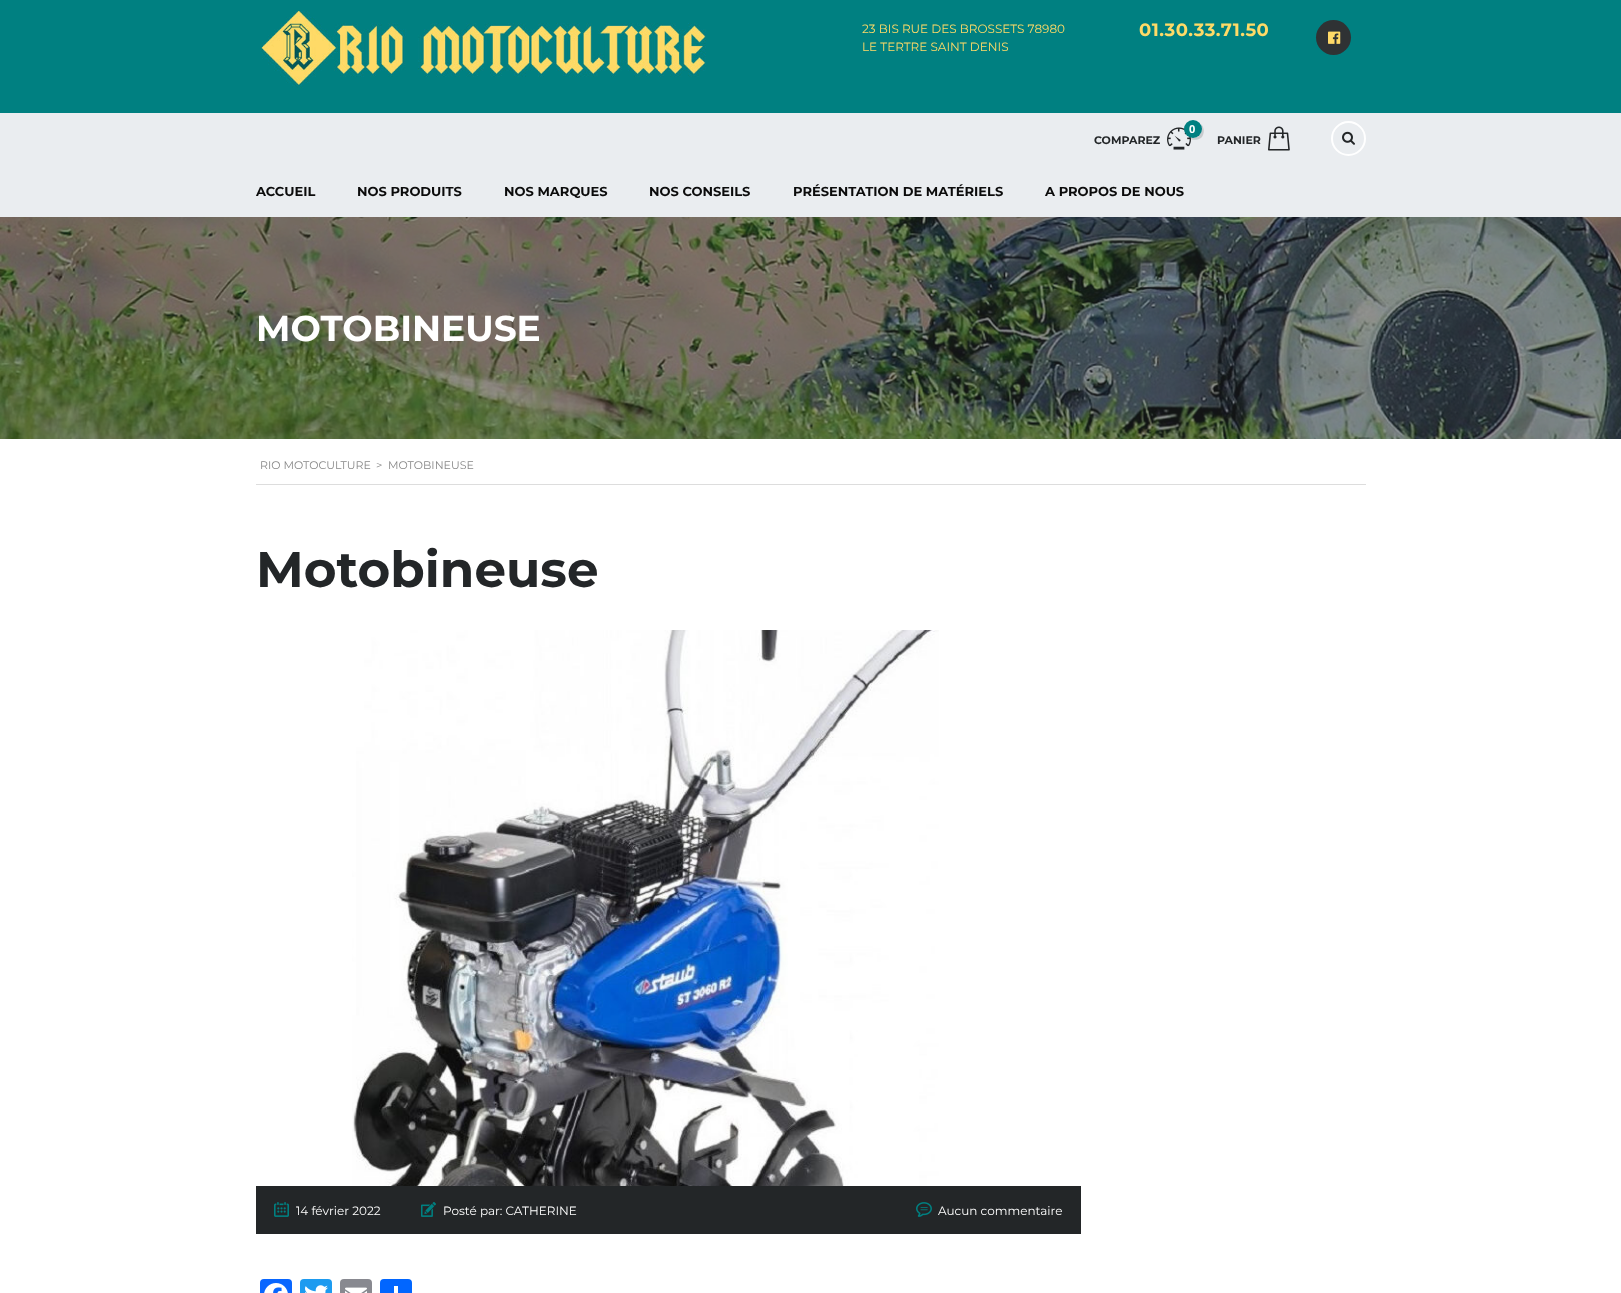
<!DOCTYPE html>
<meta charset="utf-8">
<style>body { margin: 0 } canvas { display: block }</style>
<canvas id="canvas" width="1621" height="1293"></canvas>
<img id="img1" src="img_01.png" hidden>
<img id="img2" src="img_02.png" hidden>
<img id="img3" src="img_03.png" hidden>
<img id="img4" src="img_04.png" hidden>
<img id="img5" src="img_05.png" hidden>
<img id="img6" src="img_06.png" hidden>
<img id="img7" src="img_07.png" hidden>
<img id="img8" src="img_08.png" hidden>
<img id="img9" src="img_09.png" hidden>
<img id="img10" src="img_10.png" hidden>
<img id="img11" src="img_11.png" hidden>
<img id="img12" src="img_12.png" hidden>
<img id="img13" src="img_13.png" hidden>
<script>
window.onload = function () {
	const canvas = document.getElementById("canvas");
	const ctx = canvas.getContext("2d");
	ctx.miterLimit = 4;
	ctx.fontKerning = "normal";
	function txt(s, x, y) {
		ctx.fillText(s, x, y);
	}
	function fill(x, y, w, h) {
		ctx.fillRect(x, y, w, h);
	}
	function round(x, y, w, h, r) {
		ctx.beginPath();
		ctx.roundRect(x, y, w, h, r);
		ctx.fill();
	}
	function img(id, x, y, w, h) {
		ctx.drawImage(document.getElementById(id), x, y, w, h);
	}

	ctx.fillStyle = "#FFFFFF";
	fill(0, 0, 1621, 1293);
	ctx.fillStyle = "#008081";
	fill(0, 0, 1621, 113);
	img("img1", 260, 11, 446, 77);
	ctx.fillStyle = "#2F3234";
	ctx.beginPath();
	ctx.arc(1333.5, 37.5, 17.5, 0, Math.PI * 2);
	ctx.fill();
	img("img2", 1328, 31, 13, 13);
	ctx.fillStyle = "#EAEDF0";
	fill(0, 113, 1621, 104);
	img("img3", 1167, 127, 24, 23);
	ctx.fillStyle = "rgba(0, 0, 0, 0.14)";
	ctx.beginPath();
	ctx.moveTo(1187.5, 136.5);
	ctx.bezierCurveTo(1191, 140.5, 1197.5, 141, 1201.5, 137.5);
	ctx.bezierCurveTo(1205, 133.5, 1204.5, 127, 1200.5, 123.5);
	ctx.bezierCurveTo(1206, 132, 1196, 142, 1187.5, 136.5);
	ctx.closePath();
	ctx.fill();
	ctx.fillStyle = "#008081";
	ctx.beginPath();
	ctx.arc(1193, 129, 9, 0, Math.PI * 2);
	ctx.fill();
	img("img4", 1268, 126, 22, 25);
	ctx.beginPath();
	ctx.arc(1348.5, 138.5, 16.5, 0, Math.PI * 2);
	ctx.strokeStyle = "#FFFFFF";
	ctx.lineWidth = 2;
	ctx.stroke();
	img("img5", 1342, 131, 13, 14);
	img("img6", 0, 217, 1621, 222);
	ctx.fillStyle = "#DDDDDD";
	fill(256, 484, 1110, 1);
	img("img7", 352, 630, 587, 556);
	ctx.fillStyle = "#232628";
	fill(256, 1186, 825, 48);
	img("img8", 274, 1202, 15, 15);
	img("img9", 421, 1202, 15, 15);
	img("img10", 916, 1202, 16, 15);
	ctx.fillStyle = "#0866FF";
	round(260, 1279, 32, 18, 4);
	img("img11", 264, 1283, 24, 10);
	ctx.fillStyle = "#1D9BF0";
	round(300, 1279, 32, 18, 4);
	img("img12", 305, 1285, 23, 8);
	ctx.fillStyle = "#888990";
	round(340, 1279, 32, 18, 4);
	img("img13", 345, 1287, 22, 6);
	ctx.fillStyle = "#0166FF";
	round(380, 1279, 32, 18, 4);
	ctx.fillStyle = "#FFFFFF";
	fill(394, 1286, 4, 7);
	ctx.font = "12px Montserrat";
	ctx.fillStyle = "#FFDA67";
	txt("23 BIS RUE DES BROSSETS 78980", 862, 33);
	txt("LE TERTRE SAINT DENIS", 862, 51);
	ctx.letterSpacing = "0.5px";
	ctx.font = "bold 18px Montserrat";
	txt("01.30.33.71.50", 1139, 36);
	ctx.letterSpacing = "0px";
	ctx.font = "bold 11px Montserrat";
	ctx.fillStyle = "#232628";
	txt("COMPAREZ", 1094, 144);
	ctx.font = "bold 11px Open Sans";
	ctx.fillStyle = "#FFFFFF";
	txt("0", 1189, 133);
	ctx.font = "bold 11px Montserrat";
	ctx.fillStyle = "#232628";
	txt("PANIER", 1217, 144);
	ctx.font = "bold 13px Montserrat";
	ctx.fillStyle = "#0B0B0B";
	txt("ACCUEIL", 256, 196);
	txt("NOS PRODUITS", 357, 196);
	txt("NOS MARQUES", 504, 196);
	txt("NOS CONSEILS", 649, 196);
	txt("PRÉSENTATION DE MATÉRIELS", 793, 196);
	txt("A PROPOS DE NOUS", 1045, 196);
	ctx.font = "bold 36px Montserrat";
	ctx.fillStyle = "#FFFFFF";
	txt("MOTOBINEUSE", 256, 341);
	ctx.font = "11px Montserrat";
	ctx.fillStyle = "#888888";
	txt("RIO MOTOCULTURE", 260, 469);
	txt(">", 376, 469);
	txt("MOTOBINEUSE", 388, 469);
	ctx.font = "bold 50px Montserrat";
	ctx.fillStyle = "#232628";
	txt("Motobineuse", 256, 587);
	ctx.font = "12px Montserrat";
	ctx.fillStyle = "#FFFFFF";
	txt("14 février 2022", 296, 1215);
	txt("Posté par: CATHERINE", 443, 1215);
	txt("Aucun commentaire", 938, 1215);
};
</script>
